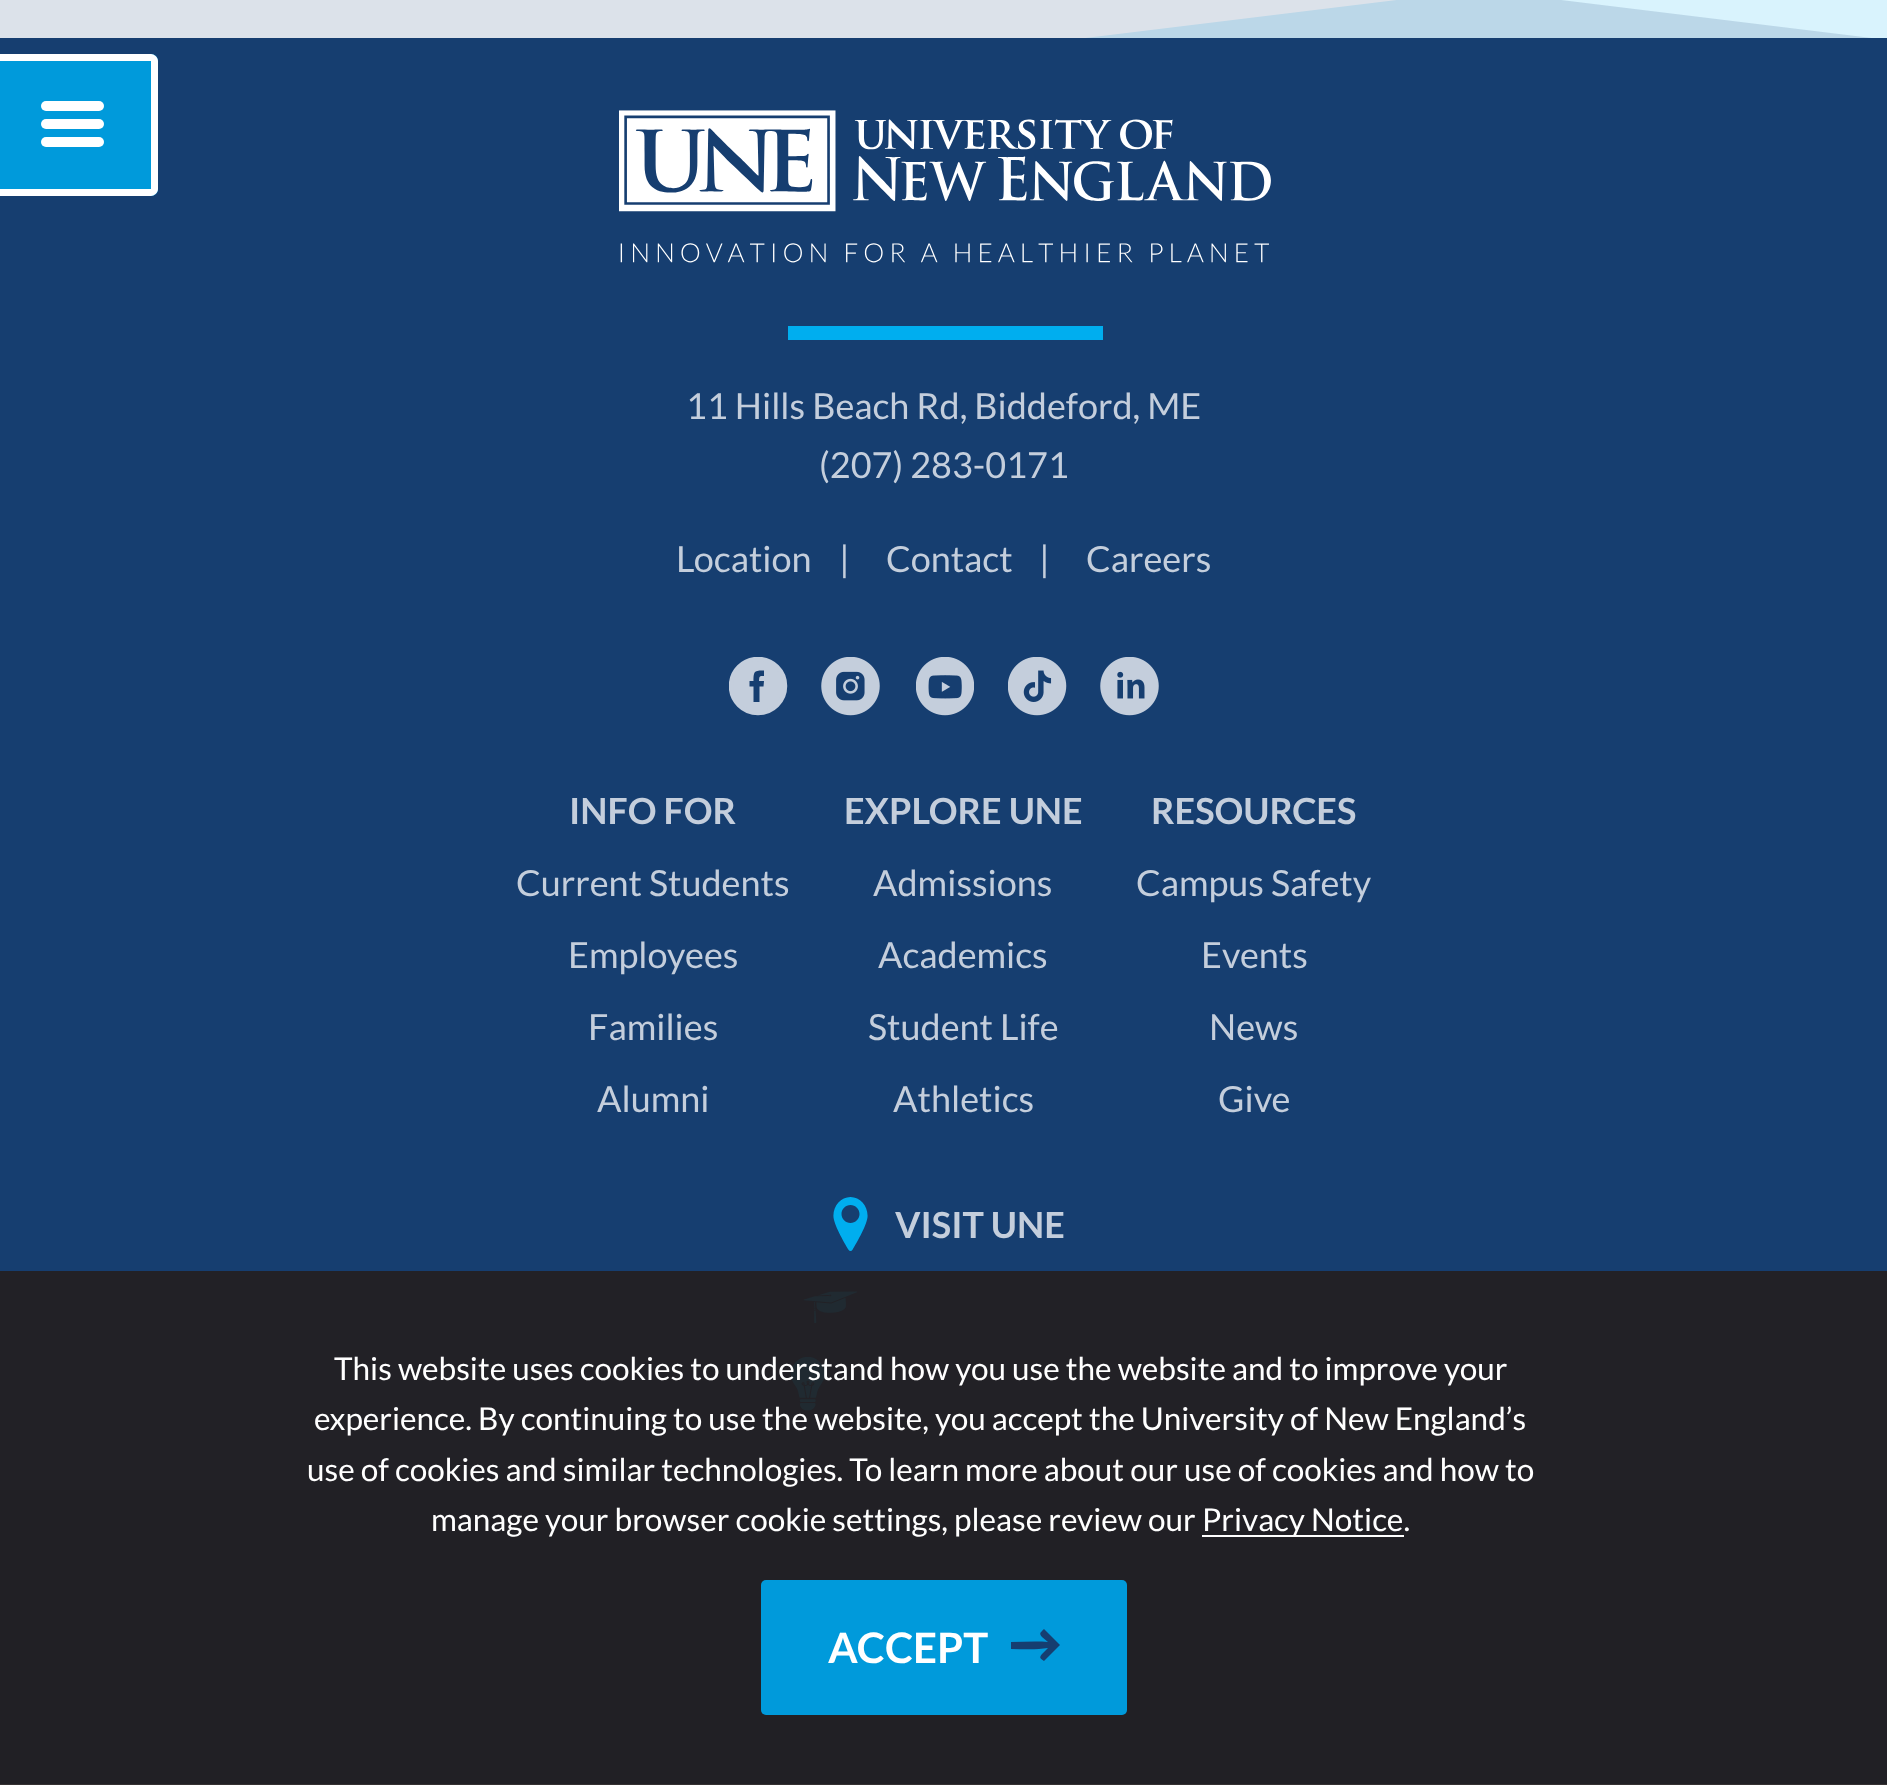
<!DOCTYPE html>
<meta charset="utf-8">
<style>body { margin: 0 } canvas { display: block }</style>
<canvas id="canvas" width="1887" height="1785"></canvas>
<img id="img1" src="img_01.png" hidden>
<img id="img2" src="img_02.png" hidden>
<img id="img3" src="img_03.png" hidden>
<img id="img4" src="img_04.png" hidden>
<img id="img5" src="img_05.png" hidden>
<img id="img6" src="img_06.png" hidden>
<img id="img7" src="img_07.png" hidden>
<img id="img8" src="img_08.png" hidden>
<script>
window.onload = function () {
	const canvas = document.getElementById("canvas");
	const ctx = canvas.getContext("2d");
	ctx.miterLimit = 4;
	ctx.fontKerning = "normal";
	function txt(s, x, y) {
		ctx.fillText(s, x, y);
	}
	function fill(x, y, w, h) {
		ctx.fillRect(x, y, w, h);
	}
	function round(x, y, w, h, r) {
		ctx.beginPath();
		ctx.roundRect(x, y, w, h, r);
		ctx.fill();
	}
	function img(id, x, y, w, h) {
		ctx.drawImage(document.getElementById(id), x, y, w, h);
	}
	let gradient;

	ctx.fillStyle = "#FFFFFF";
	fill(0, 0, 1887, 1785);
	ctx.fillStyle = "#353132";
	fill(0, 1784, 1887, 1);
	ctx.fillStyle = "#163E70";
	fill(0, 38, 1887, 1233);
	gradient = ctx.createLinearGradient(468, -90, 481, 108);
	gradient.addColorStop(0.99, "#009ADB");
	gradient.addColorStop(1, "#163E70");
	ctx.fillStyle = gradient;
	ctx.beginPath();
	ctx.roundRect(151, 54, 7, 7, [0, 7, 0, 0]);
	ctx.fill();
	gradient = ctx.createLinearGradient(-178, 39, -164, 236);
	gradient.addColorStop(0.99, "#009ADB");
	gradient.addColorStop(1, "#163E70");
	ctx.fillStyle = gradient;
	fill(0, 61, 151, 128);
	gradient = ctx.createLinearGradient(468, 167, 481, 364);
	gradient.addColorStop(0.99, "#009ADB");
	gradient.addColorStop(1, "#163E70");
	ctx.fillStyle = gradient;
	ctx.beginPath();
	ctx.roundRect(151, 189, 7, 7, [0, 0, 7, 0]);
	ctx.fill();
	ctx.fillStyle = "#FFFFFF";
	ctx.beginPath();
	ctx.moveTo(-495, 54);
	ctx.lineTo(151, 54);
	ctx.bezierCurveTo(154, 54, 158, 57, 158, 61);
	ctx.lineTo(158, 189);
	ctx.bezierCurveTo(158, 193, 154, 196, 151, 196);
	ctx.lineTo(-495, 196);
	ctx.closePath();
	ctx.moveTo(-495, 61);
	ctx.lineTo(151, 61);
	ctx.lineTo(151, 189);
	ctx.lineTo(-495, 189);
	ctx.closePath();
	ctx.fill("evenodd");
	round(41, 101, 63, 10, 5);
	round(41, 119, 63, 10, 5);
	round(41, 137, 63, 10, 5);
	ctx.save();
	ctx.beginPath();
	ctx.rect(0, 0, 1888, 38);
	ctx.clip();
	ctx.fillStyle = "#D9F3FD";
	ctx.beginPath();
	ctx.moveTo(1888, -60);
	ctx.lineTo(1069, 40);
	ctx.lineTo(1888, 40);
	ctx.closePath();
	ctx.fill();
	ctx.fillStyle = "rgba(22, 62, 112, 0.15)";
	ctx.beginPath();
	ctx.moveTo(0, -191);
	ctx.lineTo(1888, 40);
	ctx.lineTo(0, 40);
	ctx.closePath();
	ctx.fill();
	ctx.restore();
	ctx.fillStyle = "#222126";
	fill(0, 1271, 1887, 219);
	img("img1", 619, 110, 652, 153);
	ctx.fillStyle = "#00AEEF";
	fill(788, 326, 315, 14);
	ctx.fillStyle = "#C4CEDC";
	ctx.beginPath();
	ctx.arc(758, 686, 27, 0, Math.PI * 2);
	ctx.fill();
	ctx.save();
	ctx.beginPath();
	ctx.rect(729, 657, 59, 59);
	ctx.clip();
	ctx.beginPath();
	ctx.arc(758, 686, 27, 0, Math.PI * 2);
	ctx.strokeStyle = "#C4CEDC";
	ctx.lineWidth = 4.5;
	ctx.stroke();
	ctx.restore();
	ctx.fillStyle = "#163E70";
	ctx.beginPath();
	ctx.moveTo(763.5, 686.5);
	ctx.lineTo(759.5, 686.5);
	ctx.lineTo(759.5, 702);
	ctx.lineTo(753.5, 702);
	ctx.lineTo(753.5, 686.5);
	ctx.lineTo(749.5, 686.5);
	ctx.lineTo(749.5, 681);
	ctx.lineTo(753.5, 681);
	ctx.bezierCurveTo(753.5, 671, 754.5, 670.5, 764, 670.5);
	ctx.lineTo(764, 676);
	ctx.bezierCurveTo(759, 676, 759.5, 676, 759, 681);
	ctx.lineTo(764, 681);
	ctx.closePath();
	ctx.fill();
	img("img2", 821, 657, 59, 59);
	img("img3", 916, 657, 58, 59);
	img("img4", 1008, 657, 59, 59);
	img("img5", 1100, 657, 59, 59);
	img("img6", 833, 1197, 35, 54);
	img("img7", 803, 1291, 54, 32);
	img("img8", 790, 1357, 35, 54);
	ctx.fillStyle = "#212025";
	fill(0, 1490, 1887, 294);
	ctx.fillStyle = "#FFFFFF";
	fill(1202, 1535, 202, 2);
	ctx.fillStyle = "#009ADB";
	round(761, 1580, 366, 135, 5);
	ctx.fillStyle = "#163E70";
	ctx.beginPath();
	ctx.moveTo(1060, 1645);
	ctx.lineTo(1044, 1661);
	ctx.bezierCurveTo(1040, 1658, 1039, 1658, 1042, 1654);
	ctx.lineTo(1048, 1648);
	ctx.bezierCurveTo(1036, 1650, 1023, 1649, 1011, 1649);
	ctx.lineTo(1011, 1642);
	ctx.bezierCurveTo(1023, 1642, 1036, 1641, 1048, 1642);
	ctx.lineTo(1042, 1637);
	ctx.bezierCurveTo(1039, 1633, 1040, 1633, 1044, 1629);
	ctx.closePath();
	ctx.fill("evenodd");
	ctx.font = "36px Lato";
	ctx.fillStyle = "#C4CEDC";
	txt("11 Hills Beach Rd, Biddeford, ME", 686, 419);
	txt("(207) 283-0171", 819, 478);
	txt("Location", 676, 572);
	txt("|", 839, 572);
	txt("Contact", 886, 572);
	txt("|", 1039, 572);
	txt("Careers", 1086, 572);
	ctx.font = "bold 36px Lato";
	txt("INFO FOR", 569, 824);
	ctx.font = "36px Lato";
	txt("Current Students", 516, 896);
	txt("Employees", 568, 968);
	txt("Families", 588, 1040);
	txt("Alumni", 597, 1112);
	ctx.font = "bold 36px Lato";
	txt("EXPLORE UNE", 844, 824);
	ctx.font = "36px Lato";
	txt("Admissions", 873, 896);
	txt("Academics", 878, 968);
	txt("Student Life", 868, 1040);
	txt("Athletics", 893, 1112);
	ctx.font = "bold 36px Lato";
	txt("RESOURCES", 1151, 824);
	ctx.font = "36px Lato";
	txt("Campus Safety", 1136, 896);
	txt("Events", 1201, 968);
	txt("News", 1209, 1040);
	txt("Give", 1218, 1112);
	ctx.font = "bold 36px Lato";
	txt("VISIT UNE", 895, 1238);
	ctx.font = "31.5px Lato";
	ctx.fillStyle = "#FFFFFF";
	txt("This website uses cookies to understand how you use the website and to improve your", 334, 1380);
	txt("experience. By continuing to use the website, you accept the University of New England’s", 314, 1430);
	txt("use of cookies and similar technologies. To learn more about our use of cookies and how to", 307, 1481);
	txt("manage your browser cookie settings, please review our", 431, 1531);
	txt("Privacy Notice.", 1202, 1531);
	ctx.font = "bold 42px Lato";
	txt("ACCEPT", 828, 1663);
};
</script>
